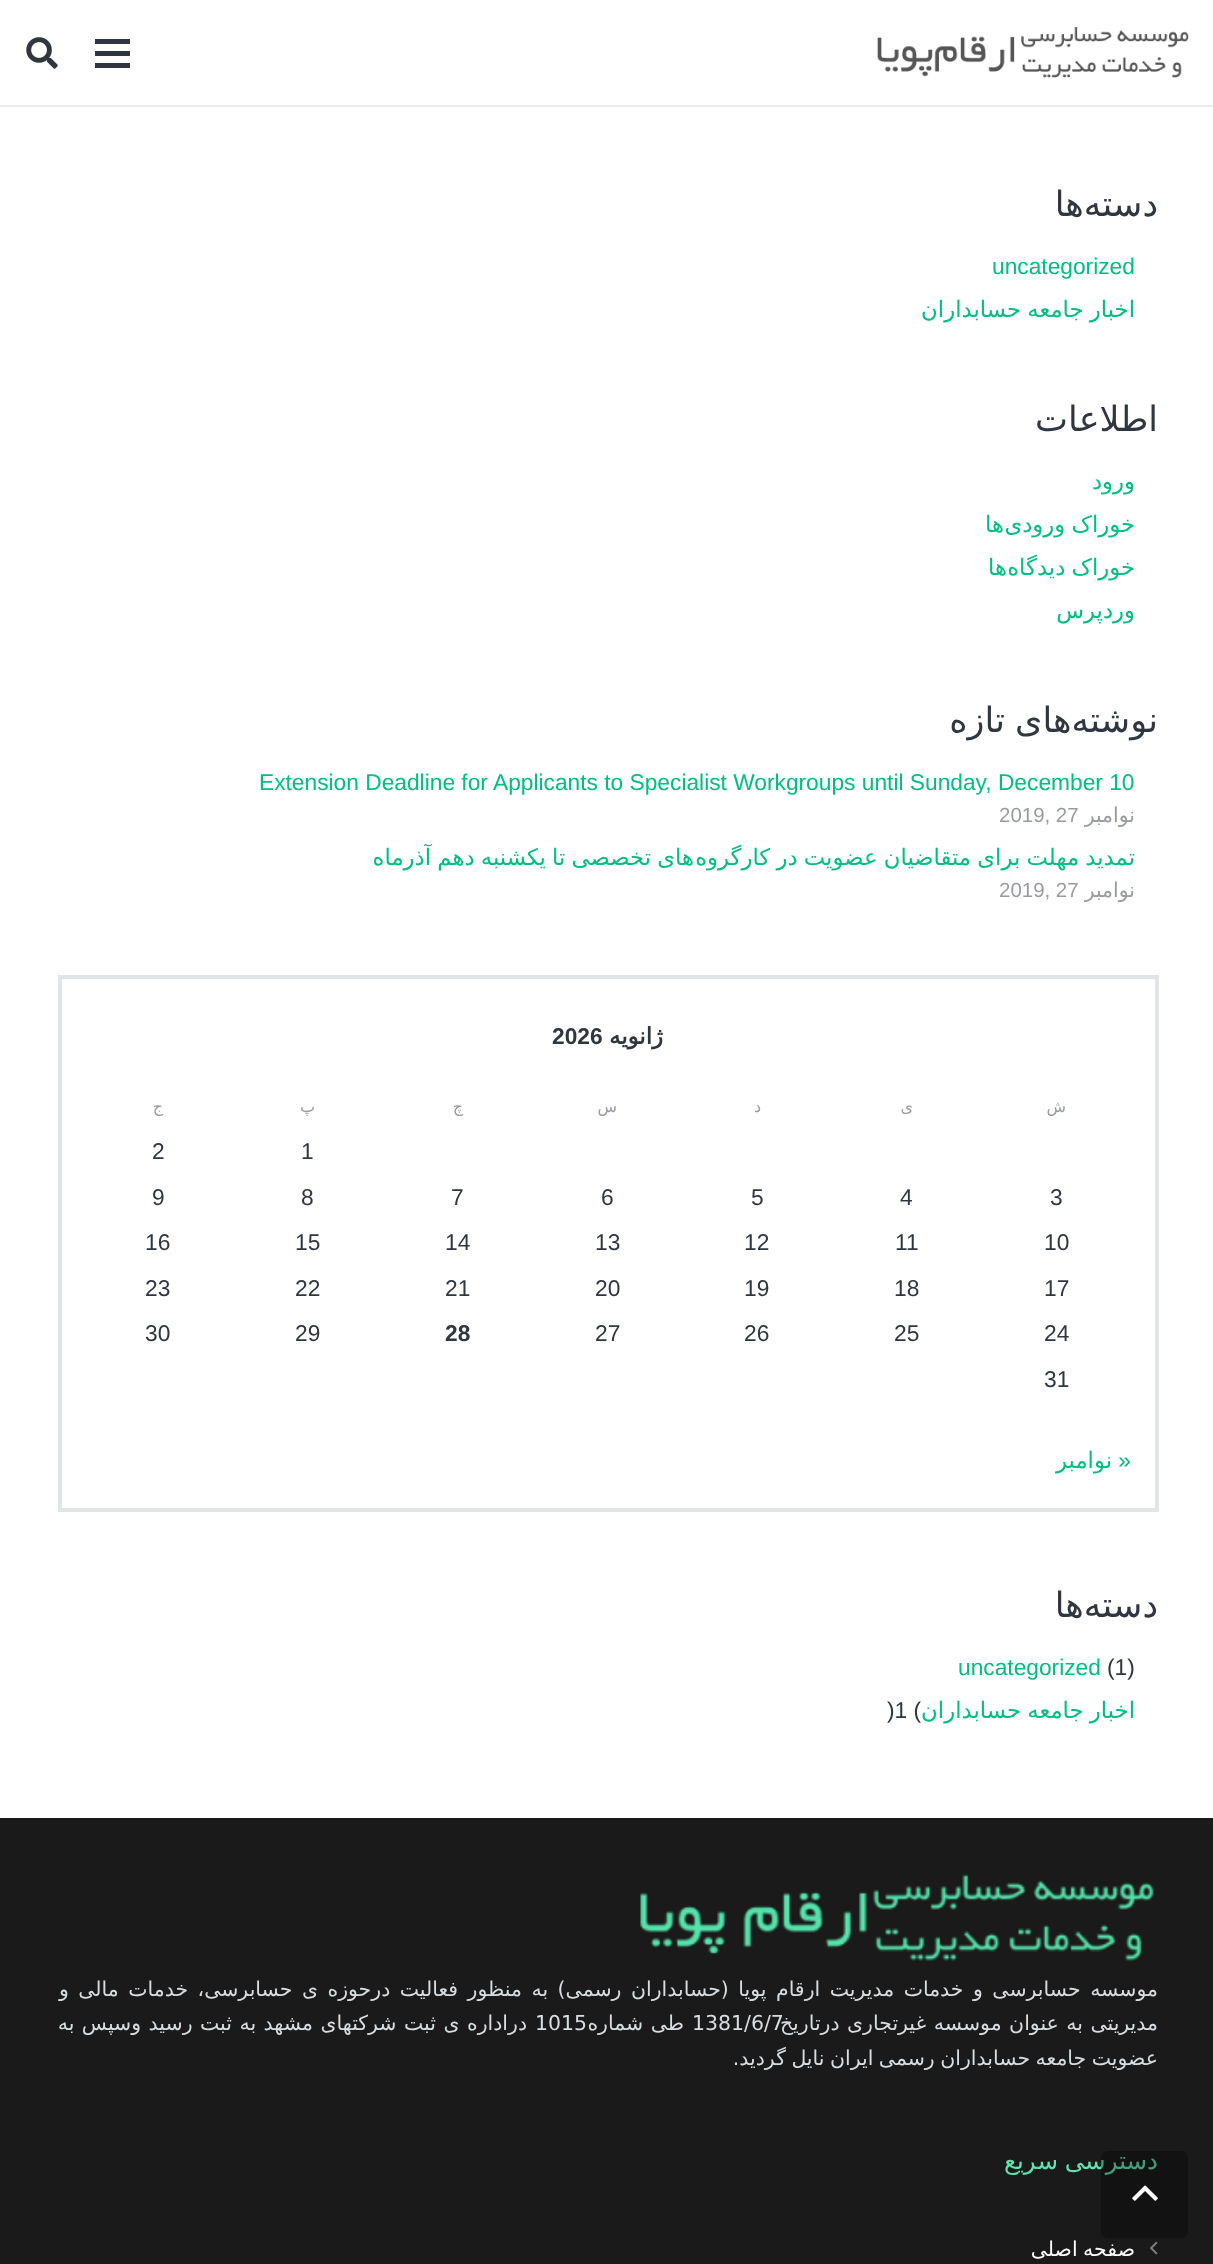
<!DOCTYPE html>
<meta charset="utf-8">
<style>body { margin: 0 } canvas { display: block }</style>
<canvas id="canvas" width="1213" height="2264"></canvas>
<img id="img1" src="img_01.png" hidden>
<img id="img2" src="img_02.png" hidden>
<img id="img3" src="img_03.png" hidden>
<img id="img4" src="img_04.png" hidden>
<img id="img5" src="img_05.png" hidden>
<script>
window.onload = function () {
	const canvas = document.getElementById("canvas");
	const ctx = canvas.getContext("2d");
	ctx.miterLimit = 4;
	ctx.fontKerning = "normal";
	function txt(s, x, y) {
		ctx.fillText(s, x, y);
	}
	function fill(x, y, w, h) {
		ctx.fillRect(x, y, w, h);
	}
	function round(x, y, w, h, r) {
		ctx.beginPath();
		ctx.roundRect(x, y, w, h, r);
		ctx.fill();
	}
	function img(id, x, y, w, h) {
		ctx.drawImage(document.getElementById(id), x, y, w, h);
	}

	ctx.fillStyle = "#FFFFFF";
	fill(0, 0, 1213, 2264);
	ctx.fillStyle = "rgba(0, 0, 0, 0.08)";
	ctx.beginPath();
	ctx.moveTo(0, 105);
	ctx.lineTo(0, 107);
	ctx.lineTo(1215, 107);
	ctx.lineTo(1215, 2);
	ctx.lineTo(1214, 2);
	ctx.lineTo(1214, 105);
	ctx.closePath();
	ctx.fill();
	img("img1", 877, 27, 312, 51);
	ctx.fillStyle = "#303640";
	fill(95, 51, 35, 5);
	fill(95, 39, 35, 5);
	fill(95, 63, 35, 5);
	img("img2", 26, 37, 32, 32);
	ctx.strokeStyle = "#E1E5E8";
	ctx.lineWidth = 4;
	ctx.strokeRect(60, 977, 1097, 533);
	ctx.fillStyle = "#1A1A1A";
	fill(0, 1818, 1213, 446);
	img("img3", 640, 1874, 514, 88);
	img("img4", 1149, 2241, 9, 14);
	ctx.direction = "rtl";
	ctx.font = "35px DejaVu Sans";
	ctx.fillStyle = "#303640";
	txt("دسته‌ها", 1158, 216);
	ctx.direction = "ltr";
	ctx.font = "22.75px Liberation Sans";
	ctx.fillStyle = "#00BF80";
	txt("uncategorized", 992, 274);
	ctx.wordSpacing = "-1px";
	ctx.direction = "rtl";
	ctx.font = "22.75px DejaVu Sans";
	txt("اخبار جامعه حسابداران", 1135, 317);
	ctx.wordSpacing = "0px";
	ctx.font = "35px DejaVu Sans";
	ctx.fillStyle = "#303640";
	txt("اطلاعات", 1158, 431);
	ctx.font = "22.75px DejaVu Sans";
	ctx.fillStyle = "#00BF80";
	txt("ورود", 1135, 489);
	ctx.wordSpacing = "-1px";
	txt("خوراک ورودی", 1135, 532);
	ctx.wordSpacing = "0px";
	txt("ها", 1004, 532);
	ctx.wordSpacing = "-1px";
	txt("خوراک دیدگاه", 1135, 575);
	ctx.wordSpacing = "0px";
	txt("ها", 1007, 575);
	txt("وردپرس", 1135, 618);
	ctx.wordSpacing = "-1px";
	ctx.font = "35px DejaVu Sans";
	ctx.fillStyle = "#303640";
	txt("نوشته‌های تازه", 1158, 732);
	ctx.wordSpacing = "0px";
	ctx.direction = "ltr";
	ctx.font = "22.75px Liberation Sans";
	ctx.fillStyle = "#00BF80";
	txt("Extension Deadline for Applicants to Specialist Workgroups until Sunday, December 10", 259, 790);
	ctx.direction = "rtl";
	ctx.font = "20.47px DejaVu Sans";
	ctx.fillStyle = "#989BA0";
	txt("نوامبر", 1135, 822);
	ctx.direction = "ltr";
	ctx.font = "20.47px Liberation Sans";
	txt("2019, 27", 999, 822);
	ctx.wordSpacing = "-1px";
	ctx.direction = "rtl";
	ctx.font = "22.75px DejaVu Sans";
	ctx.fillStyle = "#00BF80";
	txt("های تخصصی تا یکشنبه دهم آذرماه", 694, 865);
	txt("تمدید مهلت برای متقاضیان عضویت در کارگروه", 1135, 865);
	ctx.wordSpacing = "0px";
	ctx.font = "20.47px DejaVu Sans";
	ctx.fillStyle = "#989BA0";
	txt("نوامبر", 1135, 897);
	ctx.direction = "ltr";
	ctx.font = "20.47px Liberation Sans";
	txt("2019, 27", 999, 897);
	ctx.direction = "rtl";
	ctx.font = "bold 22.75px DejaVu Sans";
	ctx.fillStyle = "#303640";
	txt("ژانویه", 663, 1044);
	ctx.direction = "ltr";
	ctx.font = "bold 22.75px Liberation Sans";
	txt("2026", 552, 1044);
	ctx.direction = "rtl";
	ctx.font = "16px DejaVu Sans";
	ctx.fillStyle = "#989BA0";
	txt("ش", 1066, 1112);
	txt("ی", 913, 1112);
	txt("د", 761, 1112);
	txt("س", 617, 1112);
	txt("چ", 463, 1112);
	txt("پ", 315, 1112);
	txt("ج", 163, 1112);
	ctx.direction = "ltr";
	ctx.font = "22.75px Liberation Sans";
	ctx.fillStyle = "#303640";
	txt("1", 301, 1159);
	txt("2", 152, 1159);
	txt("3", 1050, 1205);
	txt("4", 900, 1205);
	txt("5", 751, 1205);
	txt("6", 601, 1205);
	txt("7", 451, 1205);
	txt("8", 301, 1205);
	txt("9", 152, 1205);
	txt("10", 1044, 1250);
	txt("11", 895, 1250);
	txt("12", 744, 1250);
	txt("13", 595, 1250);
	txt("14", 445, 1250);
	txt("15", 295, 1250);
	txt("16", 145, 1250);
	txt("17", 1044, 1296);
	txt("18", 894, 1296);
	txt("19", 744, 1296);
	txt("20", 595, 1296);
	txt("21", 445, 1296);
	txt("22", 295, 1296);
	txt("23", 145, 1296);
	txt("24", 1044, 1341);
	txt("25", 894, 1341);
	txt("26", 744, 1341);
	txt("27", 595, 1341);
	ctx.font = "bold 22.75px Liberation Sans";
	txt("28", 445, 1341);
	ctx.font = "22.75px Liberation Sans";
	txt("29", 295, 1341);
	txt("30", 145, 1341);
	txt("31", 1044, 1387);
	ctx.direction = "rtl";
	ctx.fillStyle = "#00BF80";
	txt("«", 1131, 1468);
	ctx.font = "22.75px DejaVu Sans";
	txt("نوامبر", 1112, 1468);
	ctx.font = "35px DejaVu Sans";
	ctx.fillStyle = "#303640";
	txt("دسته‌ها", 1158, 1617);
	ctx.direction = "ltr";
	ctx.font = "22.75px Liberation Sans";
	txt("(1)", 1107, 1675);
	ctx.fillStyle = "#00BF80";
	txt("uncategorized", 958, 1675);
	ctx.wordSpacing = "-1px";
	ctx.direction = "rtl";
	ctx.font = "22.75px DejaVu Sans";
	txt("اخبار جامعه حسابداران", 1135, 1718);
	ctx.wordSpacing = "0px";
	ctx.direction = "ltr";
	ctx.font = "22.75px Liberation Sans";
	ctx.fillStyle = "#303640";
	txt(")1 (", 887, 1718);
	ctx.wordSpacing = "3px";
	ctx.direction = "rtl";
	ctx.font = "20.47px DejaVu Sans";
	ctx.fillStyle = "#D7DDE0";
	txt("موسسه حسابرسی و خدمات مدیریت ارقام پویا (حسابداران رسمی) به منظور فعالیت درحوزه ی حسابرسی، خدمات مالی و", 1158, 1996);
	ctx.wordSpacing = "0px";
	ctx.direction = "ltr";
	txt("1381/6/7", 692, 2030);
	ctx.wordSpacing = "1px";
	ctx.direction = "rtl";
	txt("مدیریتی به عنوان موسسه غیرتجاری درتاریخ", 1158, 2030);
	txt("طی شماره", 684, 2030);
	ctx.wordSpacing = "0px";
	ctx.direction = "ltr";
	txt("1015", 535, 2030);
	ctx.wordSpacing = "1px";
	ctx.direction = "rtl";
	txt("دراداره ی ثبت شرکتهای مشهد به ثبت رسید وسپس به", 527, 2030);
	ctx.wordSpacing = "-1px";
	txt("عضویت جامعه حسابداران رسمی ایران نایل گردید.", 1158, 2065);
	ctx.font = "24.5px DejaVu Sans";
	ctx.fillStyle = "#5DE4B0";
	txt("دسترسی سریع", 1158, 2169);
	ctx.font = "20.47px DejaVu Sans";
	ctx.fillStyle = "#FFFFFF";
	txt("صفحه اصلی", 1135, 2256);
	ctx.fillStyle = "rgba(0, 0, 0, 0.3)";
	round(1101, 2151, 87, 87, 7);
	img("img5", 1132, 2185, 26, 16);
};
</script>
